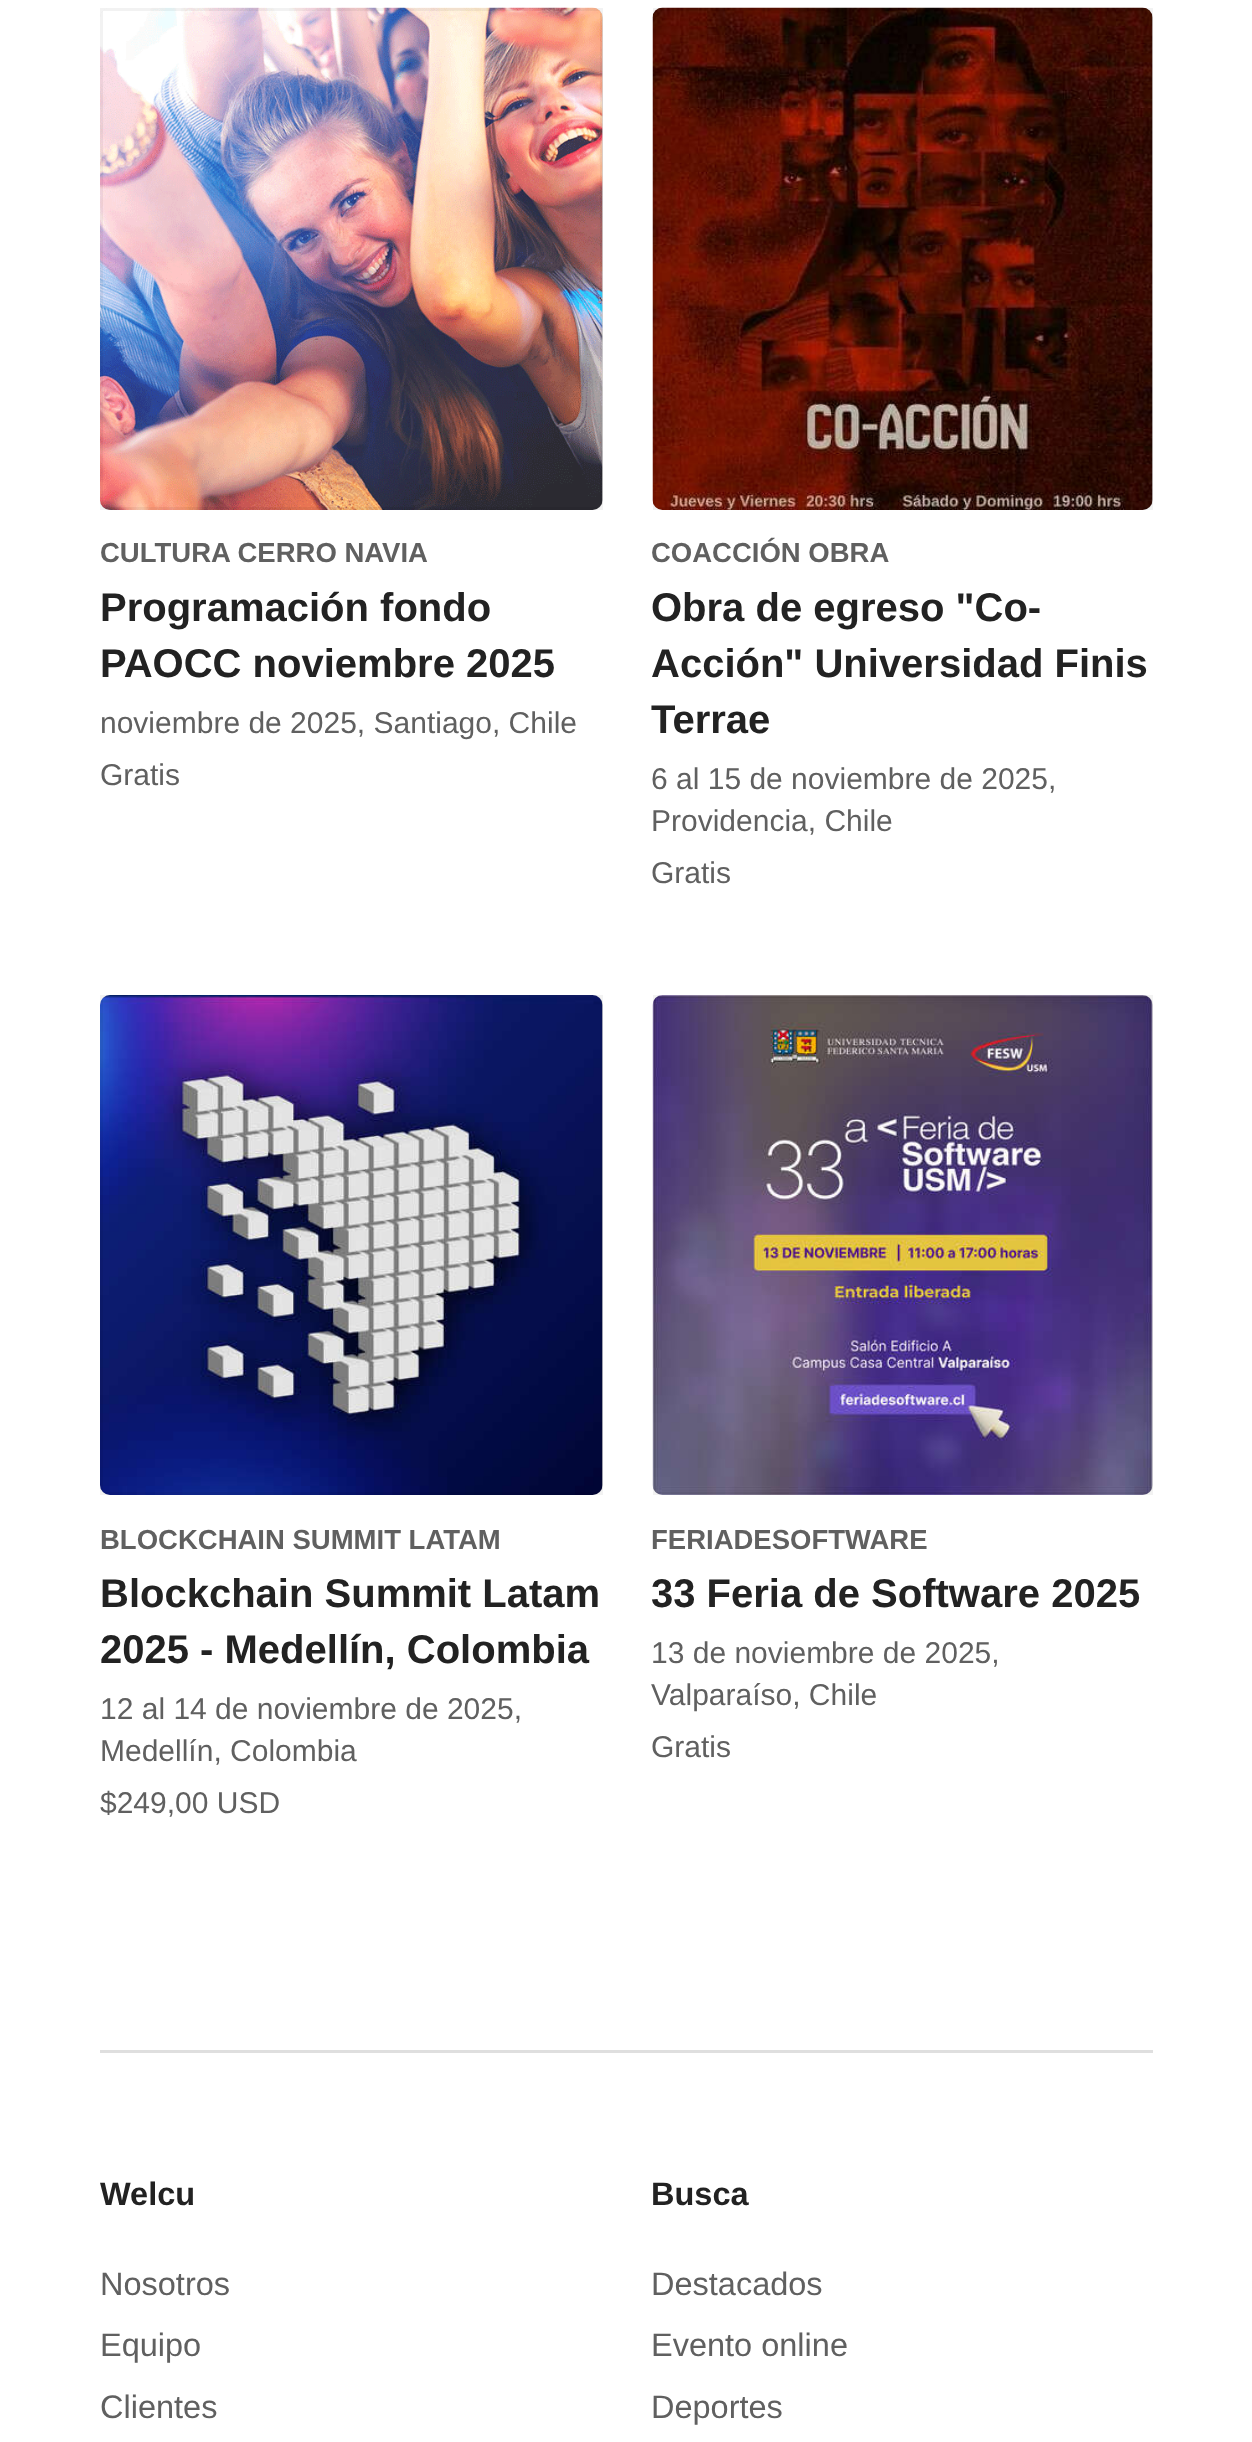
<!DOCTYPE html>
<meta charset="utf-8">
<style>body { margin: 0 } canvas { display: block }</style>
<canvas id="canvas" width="1252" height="2442"></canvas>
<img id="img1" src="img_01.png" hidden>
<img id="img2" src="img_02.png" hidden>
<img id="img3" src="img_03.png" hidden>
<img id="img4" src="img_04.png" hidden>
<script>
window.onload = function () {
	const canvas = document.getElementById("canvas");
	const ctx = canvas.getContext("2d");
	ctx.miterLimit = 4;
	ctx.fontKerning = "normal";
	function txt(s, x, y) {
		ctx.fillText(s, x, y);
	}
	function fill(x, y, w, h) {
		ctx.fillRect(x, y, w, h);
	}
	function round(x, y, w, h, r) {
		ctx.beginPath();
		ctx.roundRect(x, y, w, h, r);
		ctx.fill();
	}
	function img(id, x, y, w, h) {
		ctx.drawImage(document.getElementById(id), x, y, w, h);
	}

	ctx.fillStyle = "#FFFFFF";
	fill(0, 0, 1252, 2442);
	ctx.fillStyle = "#DFDFDF";
	round(100, 8, 503, 502, 10);
	img("img1", 100, 7, 503, 503);
	ctx.strokeStyle = "rgba(0, 0, 0, 0.05)";
	ctx.lineWidth = 3;
	ctx.strokeRect(101.5, 9.5, 500, 499);
	round(653, 8, 500, 502, 10);
	img("img2", 652, 7, 501, 503);
	ctx.strokeRect(654.5, 9.5, 497, 499);
	round(100, 995, 503, 500, 10);
	img("img3", 100, 995, 503, 500);
	ctx.strokeRect(101.5, 996.5, 500, 497);
	round(653, 995, 500, 500, 10);
	img("img4", 652, 995, 501, 500);
	ctx.strokeRect(654.5, 996.5, 497, 497);
	fill(100, 2050, 1053, 3);
	ctx.font = "bold 27.5px Liberation Sans";
	ctx.fillStyle = "#606060";
	txt("CULTURA CERRO NAVIA", 100, 562);
	ctx.font = "bold 40px Liberation Sans";
	ctx.fillStyle = "#222222";
	txt("Programación fondo", 100, 621);
	txt("PAOCC noviembre 2025", 100, 677);
	ctx.font = "30px Liberation Sans";
	ctx.fillStyle = "#606060";
	txt("noviembre de 2025, Santiago, Chile", 100, 733);
	txt("Gratis", 100, 785);
	ctx.font = "bold 27.5px Liberation Sans";
	txt("COACCIÓN OBRA", 651, 562);
	ctx.font = "bold 40px Liberation Sans";
	ctx.fillStyle = "#222222";
	txt("Obra de egreso \"Co-", 651, 621);
	txt("Acción\" Universidad Finis", 651, 677);
	txt("Terrae", 651, 733);
	ctx.font = "30px Liberation Sans";
	ctx.fillStyle = "#606060";
	txt("6 al 15 de noviembre de 2025,", 651, 789);
	txt("Providencia, Chile", 651, 831);
	txt("Gratis", 651, 883);
	ctx.font = "bold 27.5px Liberation Sans";
	txt("BLOCKCHAIN SUMMIT LATAM", 100, 1549);
	ctx.font = "bold 40px Liberation Sans";
	ctx.fillStyle = "#222222";
	txt("Blockchain Summit Latam", 100, 1607);
	txt("2025 - Medellín, Colombia", 100, 1663);
	ctx.font = "30px Liberation Sans";
	ctx.fillStyle = "#606060";
	txt("12 al 14 de noviembre de 2025,", 100, 1719);
	txt("Medellín, Colombia", 100, 1761);
	txt("$249,00 USD", 100, 1813);
	ctx.font = "bold 27.5px Liberation Sans";
	txt("FERIADESOFTWARE", 651, 1549);
	ctx.font = "bold 40px Liberation Sans";
	ctx.fillStyle = "#222222";
	txt("33 Feria de Software 2025", 651, 1607);
	ctx.font = "30px Liberation Sans";
	ctx.fillStyle = "#606060";
	txt("13 de noviembre de 2025,", 651, 1663);
	txt("Valparaíso, Chile", 651, 1705);
	txt("Gratis", 651, 1757);
	ctx.font = "bold 32.5px Liberation Sans";
	ctx.fillStyle = "#222222";
	txt("Welcu", 100, 2205);
	ctx.font = "32.5px Liberation Sans";
	ctx.fillStyle = "#606060";
	txt("Nosotros", 100, 2295);
	txt("Equipo", 100, 2356);
	txt("Clientes", 100, 2418);
	ctx.font = "bold 32.5px Liberation Sans";
	ctx.fillStyle = "#222222";
	txt("Busca", 651, 2205);
	ctx.font = "32.5px Liberation Sans";
	ctx.fillStyle = "#606060";
	txt("Destacados", 651, 2295);
	txt("Evento online", 651, 2356);
	txt("Deportes", 651, 2418);
};
</script>
